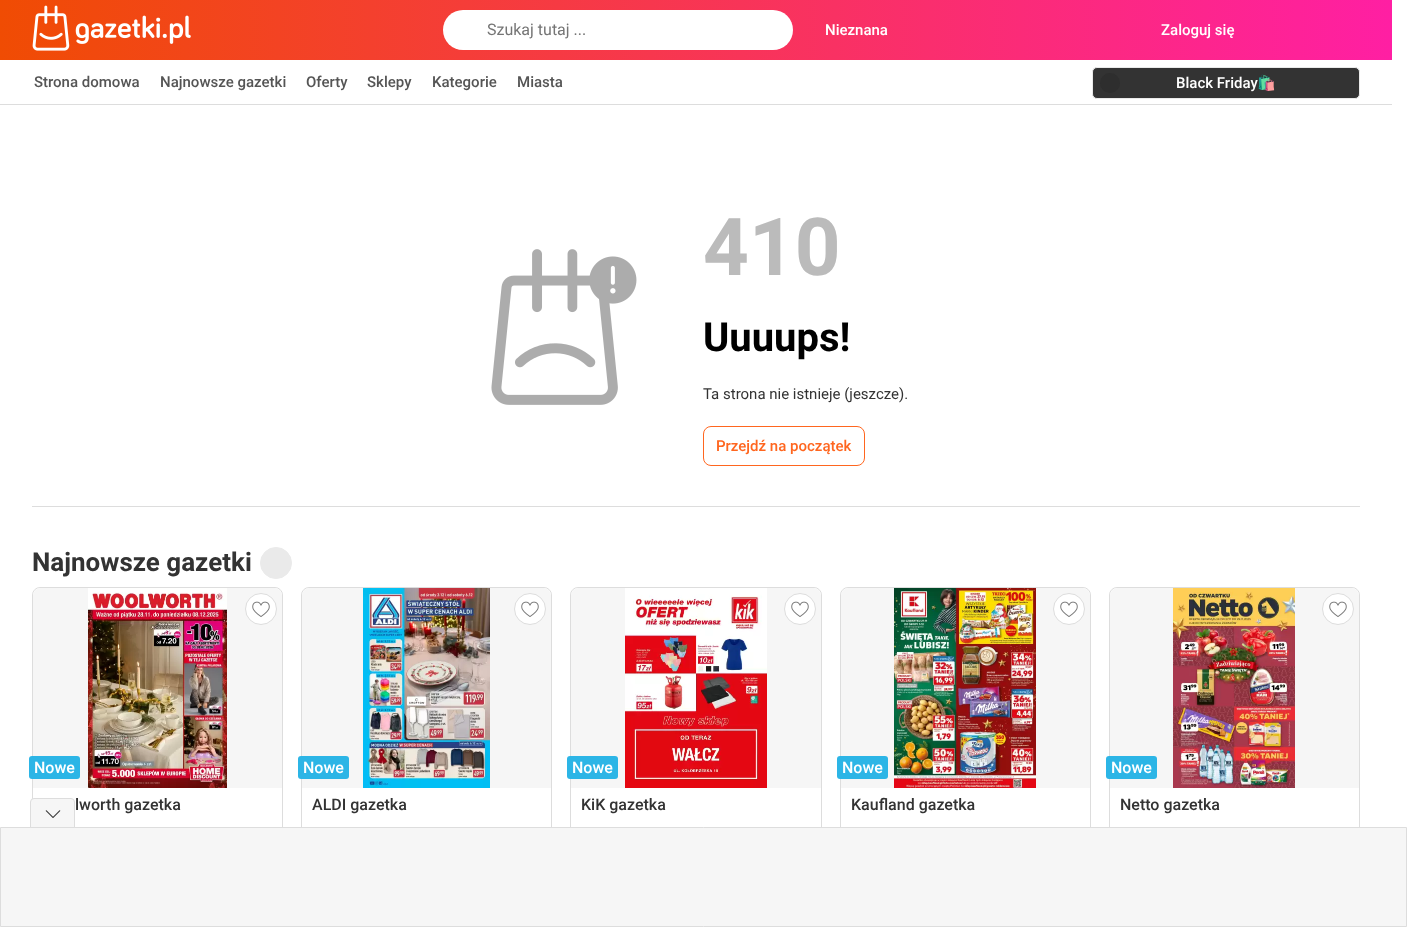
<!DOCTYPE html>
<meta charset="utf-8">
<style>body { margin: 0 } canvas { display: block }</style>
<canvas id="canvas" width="1407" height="927"></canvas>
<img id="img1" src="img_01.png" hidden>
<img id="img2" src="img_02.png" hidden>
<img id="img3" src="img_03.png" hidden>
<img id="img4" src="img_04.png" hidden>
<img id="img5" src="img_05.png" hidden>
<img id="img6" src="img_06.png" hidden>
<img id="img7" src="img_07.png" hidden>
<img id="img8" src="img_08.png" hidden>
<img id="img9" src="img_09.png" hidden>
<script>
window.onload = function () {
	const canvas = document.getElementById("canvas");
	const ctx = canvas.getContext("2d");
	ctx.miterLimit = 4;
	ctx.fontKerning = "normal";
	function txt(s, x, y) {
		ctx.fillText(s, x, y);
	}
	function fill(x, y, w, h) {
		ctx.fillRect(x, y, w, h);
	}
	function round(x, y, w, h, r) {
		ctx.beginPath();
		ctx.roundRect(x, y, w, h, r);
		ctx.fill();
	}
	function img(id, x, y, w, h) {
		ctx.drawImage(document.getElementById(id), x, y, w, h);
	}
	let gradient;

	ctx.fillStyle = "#FFFFFF";
	fill(0, 0, 1407, 927);
	ctx.fillStyle = "#DDDDDD";
	ctx.filter = "blur(0.5px)";
	ctx.beginPath();
	ctx.rect(0, 1, 1392, 104);
	ctx.fill();
	ctx.filter = "none";
	gradient = ctx.createLinearGradient(1392, 52, 0, 52);
	gradient.addColorStop(0, "#FF1FA3");
	gradient.addColorStop(1, "#F04C03");
	ctx.fillStyle = gradient;
	fill(0, 0, 1392, 60);
	img("img1", 32, 5, 159, 46);
	ctx.fillStyle = "#FFFFFF";
	round(443, 10, 350, 40, 20);
	fill(0, 60, 1392, 44);
	ctx.fillStyle = "#333333";
	ctx.beginPath();
	ctx.roundRect(1092.5, 67.5, 267, 31, 4.5);
	ctx.fill();
	ctx.strokeStyle = "#EAEAEA";
	ctx.stroke();
	ctx.fillStyle = "#2E2E2E";
	ctx.beginPath();
	ctx.arc(1110, 83, 10, 0, Math.PI * 2);
	ctx.fill();
	ctx.fillStyle = "#DDDDDD";
	fill(32, 506, 1328, 1);
	img("img2", 491, 249, 146, 156);
	ctx.beginPath();
	ctx.roundRect(703.5, 426.5, 161, 39, 7.5);
	ctx.strokeStyle = "#FF661F";
	ctx.stroke();
	ctx.fillStyle = "#EAEAEA";
	ctx.beginPath();
	ctx.arc(276, 563, 15.5, 0, Math.PI * 2);
	ctx.fill();
	ctx.strokeStyle = "#EAEAEA";
	ctx.stroke();
	ctx.beginPath();
	ctx.roundRect(32.5, 587.5, 250, 281, 7.5);
	ctx.strokeStyle = "#DDDDDD";
	ctx.stroke();
	ctx.fillStyle = "#F6F6F6";
	ctx.beginPath();
	ctx.roundRect(33, 588, 249, 200, [8, 8, 0, 0]);
	ctx.fill();
	ctx.fillStyle = "#FFFFFF";
	ctx.beginPath();
	ctx.arc(261, 609, 15.5, 0, Math.PI * 2);
	ctx.fill();
	ctx.stroke();
	img("img3", 252, 601, 18, 16);
	img("img4", 88, 588, 139, 200);
	ctx.fillStyle = "#2CB5E6";
	round(29, 756, 51, 23, 3);
	ctx.beginPath();
	ctx.roundRect(301.5, 587.5, 250, 281, 7.5);
	ctx.stroke();
	ctx.fillStyle = "#F6F6F6";
	ctx.beginPath();
	ctx.roundRect(302, 588, 249, 200, [8, 8, 0, 0]);
	ctx.fill();
	ctx.fillStyle = "#FFFFFF";
	ctx.beginPath();
	ctx.arc(530, 609, 15.5, 0, Math.PI * 2);
	ctx.fill();
	ctx.stroke();
	img("img3", 521, 601, 18, 16);
	img("img5", 363, 588, 127, 200);
	ctx.fillStyle = "#2CB5E6";
	round(298, 756, 51, 23, 3);
	ctx.beginPath();
	ctx.roundRect(570.5, 587.5, 251, 281, 7.5);
	ctx.stroke();
	ctx.fillStyle = "#F6F6F6";
	ctx.beginPath();
	ctx.roundRect(571, 588, 250, 200, [8, 8, 0, 0]);
	ctx.fill();
	ctx.fillStyle = "#FFFFFF";
	ctx.beginPath();
	ctx.arc(800, 609, 15.5, 0, Math.PI * 2);
	ctx.fill();
	ctx.stroke();
	img("img3", 791, 601, 18, 16);
	img("img6", 625, 588, 142, 200);
	ctx.fillStyle = "#2CB5E6";
	round(567, 756, 51, 23, 3);
	ctx.beginPath();
	ctx.roundRect(840.5, 587.5, 250, 281, 7.5);
	ctx.stroke();
	ctx.fillStyle = "#F6F6F6";
	ctx.beginPath();
	ctx.roundRect(841, 588, 249, 200, [8, 8, 0, 0]);
	ctx.fill();
	ctx.fillStyle = "#FFFFFF";
	ctx.beginPath();
	ctx.arc(1069, 609, 15.5, 0, Math.PI * 2);
	ctx.fill();
	ctx.stroke();
	img("img3", 1060, 601, 18, 16);
	img("img7", 894, 588, 142, 200);
	ctx.fillStyle = "#2CB5E6";
	round(837, 756, 51, 23, 3);
	ctx.beginPath();
	ctx.roundRect(1109.5, 587.5, 250, 281, 7.5);
	ctx.stroke();
	ctx.fillStyle = "#F6F6F6";
	ctx.beginPath();
	ctx.roundRect(1110, 588, 249, 200, [8, 8, 0, 0]);
	ctx.fill();
	ctx.fillStyle = "#FFFFFF";
	ctx.beginPath();
	ctx.arc(1338, 609, 15.5, 0, Math.PI * 2);
	ctx.fill();
	ctx.stroke();
	img("img3", 1329, 601, 18, 16);
	img("img8", 1173, 588, 122, 200);
	ctx.fillStyle = "#2CB5E6";
	round(1106, 756, 51, 23, 3);
	ctx.fillStyle = "#F6F6F6";
	ctx.beginPath();
	ctx.rect(0.5, 827.5, 1406, 99);
	ctx.fill();
	ctx.stroke();
	ctx.beginPath();
	ctx.roundRect(30.5, 798.5, 44, 29, [3.5, 3.5, 0, 0]);
	ctx.fill();
	ctx.stroke();
	img("img9", 45, 810, 16, 8);
	ctx.font = "16px Roboto";
	ctx.fillStyle = "#757575";
	txt("Szukaj tutaj ...", 487, 35);
	ctx.font = "500 15px Roboto";
	ctx.fillStyle = "#FFFFFF";
	txt("Nieznana", 825, 35);
	txt("Zaloguj się", 1161, 35);
	ctx.fillStyle = "#555555";
	txt("Strona domowa", 34, 87);
	txt("Najnowsze gazetki", 160, 87);
	txt("Oferty", 306, 87);
	txt("Sklepy", 367, 87);
	txt("Kategorie", 432, 87);
	txt("Miasta", 517, 87);
	ctx.fillStyle = "#FFFFFF";
	txt("Black Friday", 1176, 88);
	ctx.font = "15px Noto Color Emoji";
	txt("🛍️", 1257, 88);
	ctx.font = "bold 80px Roboto";
	ctx.fillStyle = "#BBBBBB";
	txt("410", 703, 275);
	ctx.font = "bold 40px Roboto";
	ctx.fillStyle = "#000000";
	txt("Uuuups!", 703, 351);
	ctx.font = "15px Roboto";
	ctx.fillStyle = "#333333";
	txt("Ta strona nie istnieje (jeszcze).", 703, 399);
	ctx.font = "500 15px Roboto";
	ctx.fillStyle = "#FF661F";
	txt("Przejdź na początek", 716, 451);
	ctx.font = "bold 26px Roboto";
	ctx.fillStyle = "#333333";
	txt("Najnowsze gazetki", 32, 571);
	ctx.font = "500 16px Roboto";
	ctx.fillStyle = "#FFFFFF";
	txt("Nowe", 34, 773);
	ctx.fillStyle = "#333333";
	txt("lworth gazetka", 75, 810);
	ctx.fillStyle = "#FFFFFF";
	txt("Nowe", 303, 773);
	ctx.fillStyle = "#333333";
	txt("ALDI gazetka", 312, 810);
	ctx.fillStyle = "#FFFFFF";
	txt("Nowe", 572, 773);
	ctx.fillStyle = "#333333";
	txt("KiK gazetka", 581, 810);
	ctx.fillStyle = "#FFFFFF";
	txt("Nowe", 842, 773);
	ctx.fillStyle = "#333333";
	txt("Kaufland gazetka", 851, 810);
	ctx.fillStyle = "#FFFFFF";
	txt("Nowe", 1111, 773);
	ctx.fillStyle = "#333333";
	txt("Netto gazetka", 1120, 810);
};
</script>
